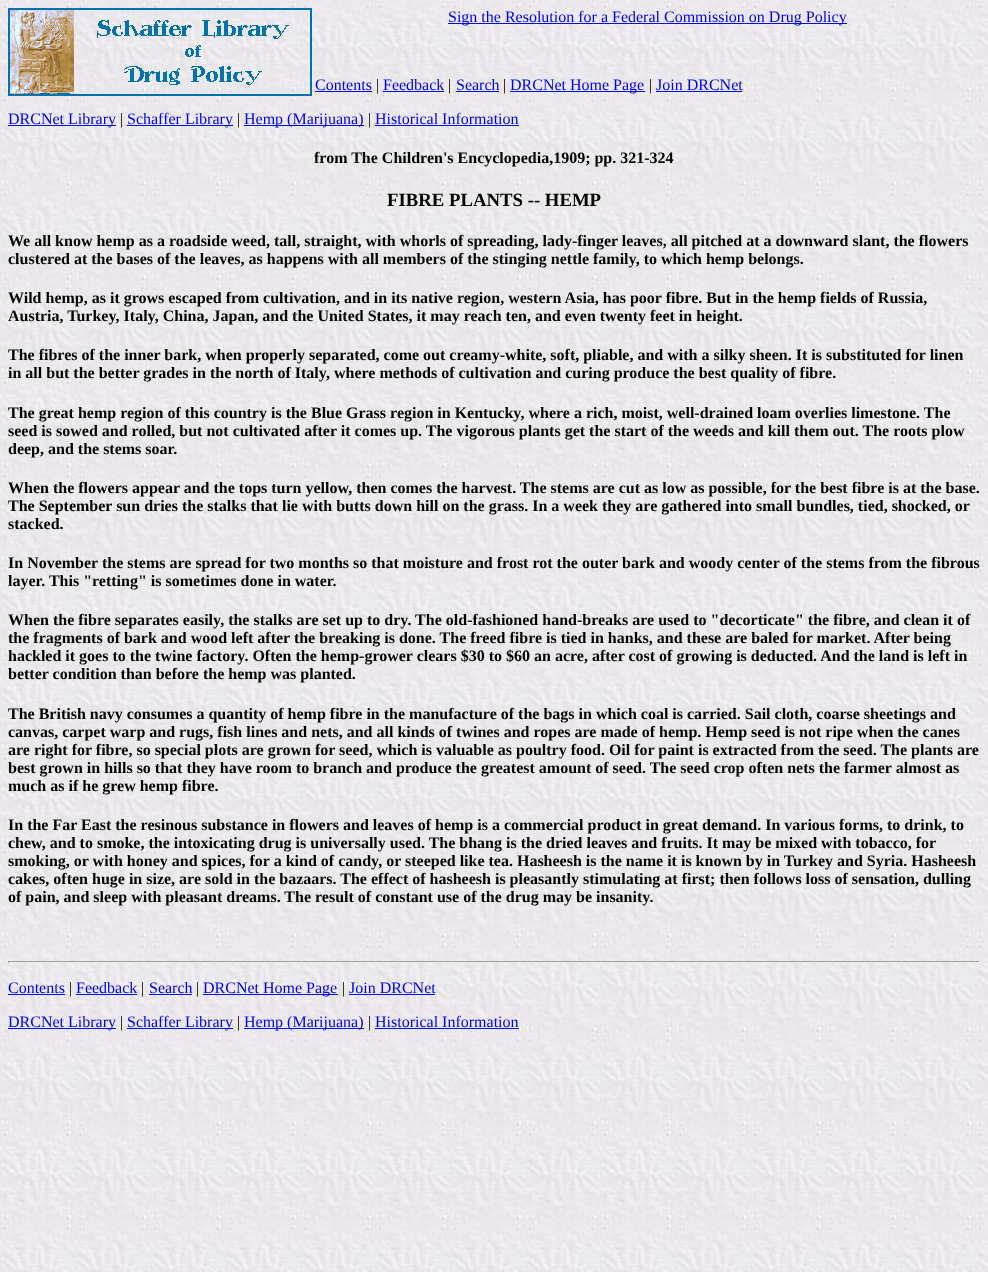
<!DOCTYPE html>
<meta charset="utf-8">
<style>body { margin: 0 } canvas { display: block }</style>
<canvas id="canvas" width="988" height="1272"></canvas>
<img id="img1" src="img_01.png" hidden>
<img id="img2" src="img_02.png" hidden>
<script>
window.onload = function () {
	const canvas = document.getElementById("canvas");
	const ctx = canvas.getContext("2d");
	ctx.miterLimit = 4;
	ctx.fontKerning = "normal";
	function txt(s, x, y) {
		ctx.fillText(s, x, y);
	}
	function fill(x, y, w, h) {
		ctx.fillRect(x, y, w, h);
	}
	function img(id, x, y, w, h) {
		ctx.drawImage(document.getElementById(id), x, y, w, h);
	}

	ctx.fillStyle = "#FFFFFF";
	fill(0, 0, 988, 1272);
	img("img1", 0, 0, 988, 1272);
	img("img2", 8, 8, 304, 88);
	ctx.fillStyle = "#0000EE";
	fill(448, 23, 399, 1);
	fill(315, 91, 57, 1);
	fill(383, 91, 61, 1);
	fill(456, 91, 43, 1);
	fill(510, 91, 135, 1);
	fill(656, 91, 86, 1);
	fill(8, 125, 108, 1);
	fill(127, 125, 106, 1);
	fill(244, 125, 120, 1);
	fill(375, 125, 144, 1);
	ctx.fillStyle = "#9F9F9F";
	fill(8, 961, 972, 1);
	ctx.fillStyle = "#EEEEEE";
	fill(979, 961, 1, 2);
	fill(8, 962, 972, 1);
	ctx.fillStyle = "#9F9F9F";
	fill(8, 961, 1, 2);
	ctx.fillStyle = "#0000EE";
	fill(8, 994, 57, 1);
	fill(76, 994, 61, 1);
	fill(149, 994, 43, 1);
	fill(203, 994, 135, 1);
	fill(349, 994, 86, 1);
	fill(8, 1028, 108, 1);
	fill(127, 1028, 106, 1);
	fill(244, 1028, 120, 1);
	fill(375, 1028, 144, 1);
	ctx.font = "16px Liberation Serif";
	txt("Sign the Resolution for a Federal Commission on Drug Policy", 448, 22);
	txt("Contents", 315, 90);
	ctx.fillStyle = "#000000";
	txt("|", 376, 90);
	ctx.fillStyle = "#0000EE";
	txt("Feedback", 383, 90);
	ctx.fillStyle = "#000000";
	txt("|", 448, 90);
	ctx.fillStyle = "#0000EE";
	txt("Search", 456, 90);
	ctx.fillStyle = "#000000";
	txt("|", 503, 90);
	ctx.fillStyle = "#0000EE";
	txt("DRCNet Home Page", 510, 90);
	ctx.fillStyle = "#000000";
	txt("|", 649, 90);
	ctx.fillStyle = "#0000EE";
	txt("Join DRCNet", 656, 90);
	txt("DRCNet Library", 8, 124);
	ctx.fillStyle = "#000000";
	txt("|", 120, 124);
	ctx.fillStyle = "#0000EE";
	txt("Schaffer Library", 127, 124);
	ctx.fillStyle = "#000000";
	txt("|", 237, 124);
	ctx.fillStyle = "#0000EE";
	txt("Hemp (Marijuana)", 244, 124);
	ctx.fillStyle = "#000000";
	txt("|", 368, 124);
	ctx.fillStyle = "#0000EE";
	txt("Historical Information", 375, 124);
	ctx.font = "bold 16px Liberation Serif";
	ctx.fillStyle = "#000000";
	txt("from The Children's Encyclopedia,1909; pp. 321-324", 314, 163);
	ctx.font = "bold 18.75px Liberation Serif";
	txt("FIBRE PLANTS -- HEMP", 387, 206);
	ctx.font = "bold 16px Liberation Serif";
	txt("We all know hemp as a roadside weed, tall, straight, with whorls of spreading, lady-finger leaves, all pitched at a downward slant, the flowers", 8, 246);
	txt("clustered at the bases of the leaves, as happens with all members of the stinging nettle family, to which hemp belongs.", 8, 264);
	txt("Wild hemp, as it grows escaped from cultivation, and in its native region, western Asia, has poor fibre. But in the hemp fields of Russia,", 8, 303);
	txt("Austria, Turkey, Italy, China, Japan, and the United States, it may reach ten, and even twenty feet in height.", 8, 321);
	txt("The fibres of the inner bark, when properly separated, come out creamy-white, soft, pliable, and with a silky sheen. It is substituted for linen", 8, 360);
	txt("in all but the better grades in the north of Italy, where methods of cultivation and curing produce the best quality of fibre.", 8, 378);
	txt("The great hemp region of this country is the Blue Grass region in Kentucky, where a rich, moist, well-drained loam overlies limestone. The", 8, 418);
	txt("seed is sowed and rolled, but not cultivated after it comes up. The vigorous plants get the start of the weeds and kill them out. The roots plow", 8, 436);
	txt("deep, and the stems soar.", 8, 454);
	txt("When the flowers appear and the tops turn yellow, then comes the harvest. The stems are cut as low as possible, for the best fibre is at the base.", 8, 493);
	txt("The September sun dries the stalks that lie with butts down hill on the grass. In a week they are gathered into small bundles, tied, shocked, or", 8, 511);
	txt("stacked.", 8, 529);
	txt("In November the stems are spread for two months so that moisture and frost rot the outer bark and woody center of the stems from the fibrous", 8, 568);
	txt("layer. This \"retting\" is sometimes done in water.", 8, 586);
	txt("When the fibre separates easily, the stalks are set up to dry. The old-fashioned hand-breaks are used to \"decorticate\" the fibre, and clean it of", 8, 625);
	txt("the fragments of bark and wood left after the breaking is done. The freed fibre is tied in hanks, and these are baled for market. After being", 8, 643);
	txt("hackled it goes to the twine factory. Often the hemp-grower clears $30 to $60 an acre, after cost of growing is deducted. And the land is left in", 8, 661);
	txt("better condition than before the hemp was planted.", 8, 679);
	txt("The British navy consumes a quantity of hemp fibre in the manufacture of the bags in which coal is carried. Sail cloth, coarse sheetings and", 8, 719);
	txt("canvas, carpet warp and rugs, fish lines and nets, and all kinds of twines and ropes are made of hemp. Hemp seed is not ripe when the canes", 8, 737);
	txt("are right for fibre, so special plots are grown for seed, which is valuable as poultry food. Oil for paint is extracted from the seed. The plants are", 8, 755);
	txt("best grown in hills so that they have room to branch and produce the greatest amount of seed. The seed crop often nets the farmer almost as", 8, 773);
	txt("much as if he grew hemp fibre.", 8, 791);
	txt("In the Far East the resinous substance in flowers and leaves of hemp is a commercial product in great demand. In various forms, to drink, to", 8, 830);
	txt("chew, and to smoke, the intoxicating drug is universally used. The bhang is the dried leaves and fruits. It may be mixed with tobacco, for", 8, 848);
	txt("smoking, or with honey and spices, for a kind of candy, or steeped like tea. Hasheesh is the name it is known by in Turkey and Syria. Hasheesh", 8, 866);
	txt("cakes, often huge in size, are sold in the bazaars. The effect of hasheesh is pleasantly stimulating at first; then follows loss of sensation, dulling", 8, 884);
	txt("of pain, and sleep with pleasant dreams. The result of constant use of the drug may be insanity.", 8, 902);
	ctx.font = "16px Liberation Serif";
	ctx.fillStyle = "#0000EE";
	txt("Contents", 8, 993);
	ctx.fillStyle = "#000000";
	txt("|", 69, 993);
	ctx.fillStyle = "#0000EE";
	txt("Feedback", 76, 993);
	ctx.fillStyle = "#000000";
	txt("|", 141, 993);
	ctx.fillStyle = "#0000EE";
	txt("Search", 149, 993);
	ctx.fillStyle = "#000000";
	txt("|", 196, 993);
	ctx.fillStyle = "#0000EE";
	txt("DRCNet Home Page", 203, 993);
	ctx.fillStyle = "#000000";
	txt("|", 342, 993);
	ctx.fillStyle = "#0000EE";
	txt("Join DRCNet", 349, 993);
	txt("DRCNet Library", 8, 1027);
	ctx.fillStyle = "#000000";
	txt("|", 120, 1027);
	ctx.fillStyle = "#0000EE";
	txt("Schaffer Library", 127, 1027);
	ctx.fillStyle = "#000000";
	txt("|", 237, 1027);
	ctx.fillStyle = "#0000EE";
	txt("Hemp (Marijuana)", 244, 1027);
	ctx.fillStyle = "#000000";
	txt("|", 368, 1027);
	ctx.fillStyle = "#0000EE";
	txt("Historical Information", 375, 1027);
};
</script>
